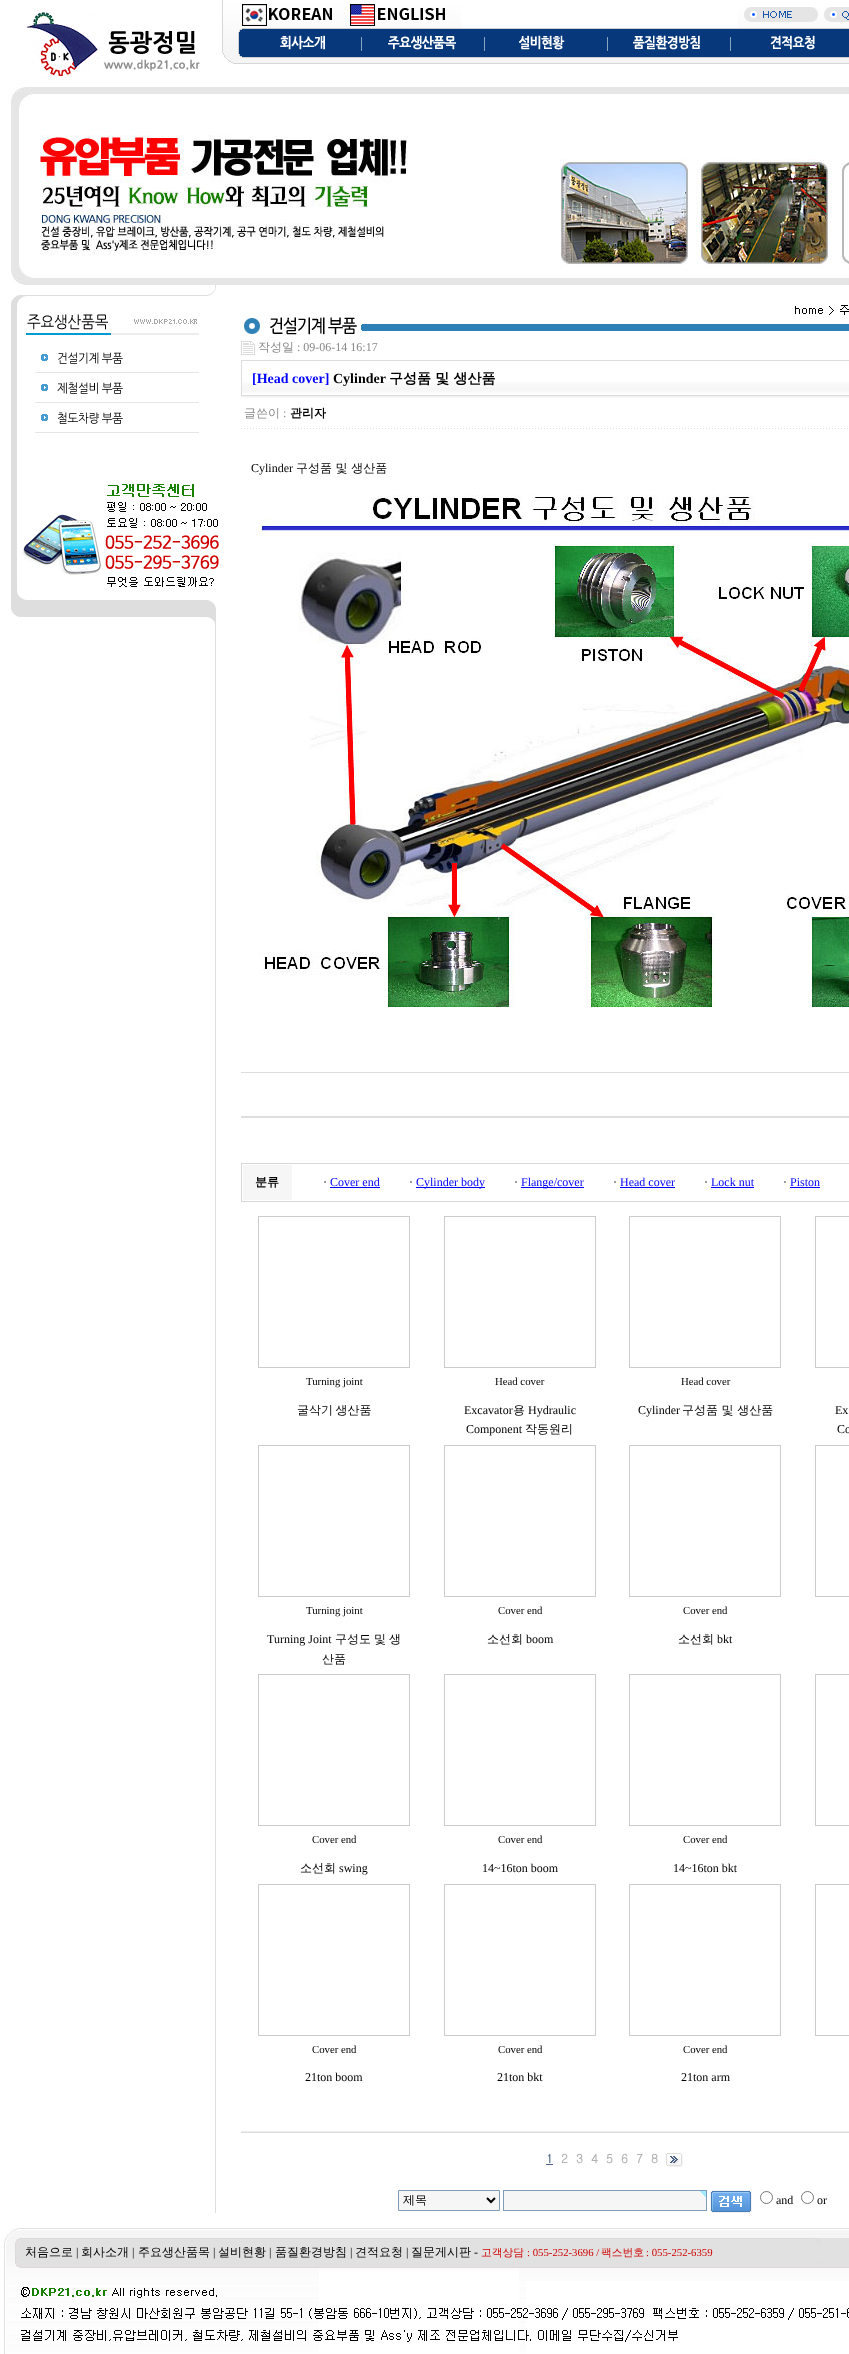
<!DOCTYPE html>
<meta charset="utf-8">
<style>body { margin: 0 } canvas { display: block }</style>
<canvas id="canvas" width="849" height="2354"></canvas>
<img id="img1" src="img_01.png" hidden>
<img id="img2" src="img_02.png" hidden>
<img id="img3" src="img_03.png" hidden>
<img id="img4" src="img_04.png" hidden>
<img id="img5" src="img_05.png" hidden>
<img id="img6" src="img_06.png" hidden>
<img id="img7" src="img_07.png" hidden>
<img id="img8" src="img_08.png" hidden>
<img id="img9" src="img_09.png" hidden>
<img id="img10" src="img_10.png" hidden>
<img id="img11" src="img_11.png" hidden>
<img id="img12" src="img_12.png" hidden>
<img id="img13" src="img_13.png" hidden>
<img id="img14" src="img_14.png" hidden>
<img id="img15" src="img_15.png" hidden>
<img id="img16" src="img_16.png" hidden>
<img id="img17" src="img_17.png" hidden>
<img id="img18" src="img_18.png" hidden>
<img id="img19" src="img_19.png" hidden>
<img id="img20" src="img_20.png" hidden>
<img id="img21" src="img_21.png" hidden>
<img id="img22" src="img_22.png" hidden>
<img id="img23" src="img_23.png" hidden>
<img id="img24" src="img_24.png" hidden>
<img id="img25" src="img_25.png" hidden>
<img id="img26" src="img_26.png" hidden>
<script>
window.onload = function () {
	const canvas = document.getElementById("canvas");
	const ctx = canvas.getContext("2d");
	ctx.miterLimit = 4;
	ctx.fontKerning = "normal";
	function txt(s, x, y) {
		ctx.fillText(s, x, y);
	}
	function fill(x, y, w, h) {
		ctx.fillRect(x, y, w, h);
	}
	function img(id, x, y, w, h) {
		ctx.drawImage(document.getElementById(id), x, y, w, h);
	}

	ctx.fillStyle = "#FFFFFF";
	fill(0, 0, 849, 2354);
	img("img1", 22, 2, 178, 76);
	img("img2", 222, 0, 128, 28);
	img("img3", 350, 4, 111, 24);
	img("img4", 738, 7, 86, 21);
	img("img5", 824, 7, 25, 21);
	img("img6", 222, 28, 140, 36);
	img("img7", 362, 28, 123, 36);
	img("img8", 485, 28, 123, 36);
	img("img9", 608, 28, 123, 36);
	img("img10", 731, 28, 118, 36);
	img("img11", 11, 87, 838, 198);
	ctx.fillStyle = "#DEDEDE";
	fill(215, 285, 1, 1928);
	img("img12", 11, 287, 205, 48);
	img("img13", 11, 335, 205, 38);
	img("img14", 11, 373, 205, 30);
	img("img15", 11, 403, 205, 30);
	img("img16", 11, 433, 208, 190);
	img("img17", 244, 305, 605, 30);
	img("img18", 241, 341, 14, 14);
	img("img19", 242, 382, 607, 11);
	ctx.strokeStyle = "#DDDDDD";
	ctx.strokeRect(241.5, 360.5, 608, 35);
	img("img20", 241, 396, 608, 2);
	img("img21", 241, 428, 607, 1);
	img("img22", 259, 495, 590, 512);
	ctx.fillStyle = "#DDDDDD";
	fill(241, 1072, 608, 1);
	ctx.fillStyle = "#DEDEDE";
	fill(241, 1116, 608, 2);
	ctx.fillStyle = "#F6F6F6";
	fill(243, 1165, 49, 35);
	ctx.fillStyle = "#D8D8D8";
	fill(241, 1163, 608, 1);
	fill(241, 1201, 608, 1);
	fill(241, 1163, 1, 39);
	ctx.fillStyle = "#0000FF";
	fill(330, 1187, 50, 1);
	fill(416, 1187, 69, 1);
	fill(521, 1187, 63, 1);
	fill(620, 1187, 55, 1);
	fill(711, 1187, 43, 1);
	fill(790, 1187, 30, 1);
	ctx.strokeStyle = "#CCCCCC";
	ctx.strokeRect(258.5, 1216.5, 151, 151);
	ctx.strokeRect(444.5, 1216.5, 151, 151);
	ctx.strokeRect(629.5, 1216.5, 151, 151);
	ctx.strokeRect(815.5, 1216.5, 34, 151);
	ctx.strokeRect(815.5, 1445.5, 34, 151);
	ctx.strokeRect(258.5, 1445.5, 151, 151);
	ctx.strokeRect(444.5, 1445.5, 151, 151);
	ctx.strokeRect(629.5, 1445.5, 151, 151);
	ctx.strokeRect(815.5, 1674.5, 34, 151);
	ctx.strokeRect(258.5, 1674.5, 151, 151);
	ctx.strokeRect(444.5, 1674.5, 151, 151);
	ctx.strokeRect(629.5, 1674.5, 151, 151);
	ctx.strokeRect(815.5, 1884.5, 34, 151);
	ctx.strokeRect(258.5, 1884.5, 151, 151);
	ctx.strokeRect(444.5, 1884.5, 151, 151);
	ctx.strokeRect(629.5, 1884.5, 151, 151);
	ctx.fillStyle = "#EEEEEE";
	fill(241, 2131, 608, 1);
	ctx.fillStyle = "#DDDDDD";
	fill(241, 2132, 608, 1);
	ctx.fillStyle = "#4D6185";
	fill(546, 2164, 7, 1);
	img("img23", 666, 2153, 17, 14);
	ctx.fillStyle = "#F6F6F6";
	ctx.beginPath();
	ctx.rect(398.5, 2190.5, 101, 20);
	ctx.fill();
	ctx.strokeStyle = "#7F9DB9";
	ctx.stroke();
	ctx.beginPath();
	ctx.moveTo(487, 2198);
	ctx.lineTo(491, 2202);
	ctx.lineTo(495, 2198);
	ctx.strokeStyle = "#000000";
	ctx.lineWidth = 2;
	ctx.stroke();
	fill(504, 2191, 202, 19);
	img("img24", 700, 2191, 6, 6);
	ctx.strokeStyle = "#7F9DB9";
	ctx.lineWidth = 1;
	ctx.strokeRect(503.5, 2190.5, 203, 20);
	img("img25", 710, 2190, 42, 23);
	ctx.beginPath();
	ctx.arc(766.5, 2197.5, 6, 0, Math.PI * 2);
	ctx.strokeStyle = "#767676";
	ctx.stroke();
	ctx.beginPath();
	ctx.arc(807.5, 2197.5, 6, 0, Math.PI * 2);
	ctx.stroke();
	img("img26", 4, 2228, 845, 126);
	ctx.font = "500 12px WenQuanYi Zen Hei";
	ctx.fillStyle = "#888888";
	txt("작성일", 258, 351);
	ctx.font = "12px Liberation Serif";
	txt(": 09-06-14 16:17", 297, 351);
	ctx.font = "bold 14px Liberation Serif";
	ctx.fillStyle = "#0000FF";
	txt("[Head cover]", 252, 383);
	ctx.fillStyle = "#000000";
	txt("Cylinder", 333, 383);
	ctx.font = "bold 14px WenQuanYi Zen Hei";
	txt("구성품 및 생산품", 389, 383);
	ctx.font = "500 12px WenQuanYi Zen Hei";
	ctx.fillStyle = "#888888";
	txt("글쓴이", 244, 417);
	ctx.font = "12px Liberation Serif";
	txt(":", 283, 417);
	ctx.font = "bold 12px WenQuanYi Zen Hei";
	ctx.fillStyle = "#000000";
	txt("관리자", 290, 417);
	ctx.font = "12px Liberation Serif";
	txt("Cylinder", 251, 472);
	ctx.font = "500 12px WenQuanYi Zen Hei";
	txt("구성품 및 생산품", 296, 472);
	ctx.font = "bold 12px WenQuanYi Zen Hei";
	txt("분류", 255, 1186);
	ctx.font = "12px Liberation Serif";
	txt("·", 323, 1186);
	ctx.fillStyle = "#0000FF";
	txt("Cover end", 330, 1186);
	ctx.fillStyle = "#000000";
	txt("·", 409, 1186);
	ctx.fillStyle = "#0000FF";
	txt("Cylinder body", 416, 1186);
	ctx.fillStyle = "#000000";
	txt("·", 514, 1186);
	ctx.fillStyle = "#0000FF";
	txt("Flange/cover", 521, 1186);
	ctx.fillStyle = "#000000";
	txt("·", 613, 1186);
	ctx.fillStyle = "#0000FF";
	txt("Head cover", 620, 1186);
	ctx.fillStyle = "#000000";
	txt("·", 704, 1186);
	ctx.fillStyle = "#0000FF";
	txt("Lock nut", 711, 1186);
	ctx.fillStyle = "#000000";
	txt("·", 783, 1186);
	ctx.fillStyle = "#0000FF";
	txt("Piston", 790, 1186);
	ctx.font = "10.75px Liberation Serif";
	ctx.fillStyle = "#000000";
	txt("Turning joint", 306, 1385);
	ctx.wordSpacing = "-1px";
	ctx.font = "500 12px WenQuanYi Zen Hei";
	txt("굴삭기 생산품", 297, 1414);
	ctx.wordSpacing = "0px";
	ctx.font = "10.75px Liberation Serif";
	txt("Head cover", 495, 1385);
	ctx.font = "12px Liberation Serif";
	txt("Excavator", 464, 1414);
	ctx.font = "500 12px WenQuanYi Zen Hei";
	txt("용", 513, 1414);
	ctx.font = "12px Liberation Serif";
	txt("Hydraulic", 528, 1414);
	txt("Component", 466, 1433);
	ctx.font = "500 12px WenQuanYi Zen Hei";
	txt("작동원리", 525, 1433);
	ctx.font = "10.75px Liberation Serif";
	txt("Head cover", 681, 1385);
	ctx.font = "12px Liberation Serif";
	txt("Cylinder", 638, 1414);
	ctx.font = "500 12px WenQuanYi Zen Hei";
	txt("구성품 및 생산품", 682, 1414);
	ctx.font = "12px Liberation Serif";
	txt("Ex", 835, 1414);
	txt("Co", 837, 1433);
	ctx.font = "10.75px Liberation Serif";
	txt("Turning joint", 306, 1614);
	ctx.font = "12px Liberation Serif";
	txt("Turning Joint", 267, 1643);
	ctx.font = "500 12px WenQuanYi Zen Hei";
	txt("구성도", 335, 1643);
	txt("및", 374, 1643);
	txt("생", 389, 1643);
	txt("산품", 322, 1663);
	ctx.font = "10.75px Liberation Serif";
	txt("Cover end", 498, 1614);
	ctx.font = "500 12px WenQuanYi Zen Hei";
	txt("소선회", 487, 1643);
	ctx.font = "12px Liberation Serif";
	txt("boom", 526, 1643);
	ctx.font = "10.75px Liberation Serif";
	txt("Cover end", 683, 1614);
	ctx.font = "500 12px WenQuanYi Zen Hei";
	txt("소선회", 678, 1643);
	ctx.font = "12px Liberation Serif";
	txt("bkt", 717, 1643);
	ctx.font = "10.75px Liberation Serif";
	txt("Cover end", 312, 1843);
	ctx.font = "500 12px WenQuanYi Zen Hei";
	txt("소선회", 300, 1872);
	ctx.font = "12px Liberation Serif";
	txt("swing", 339, 1872);
	ctx.font = "10.75px Liberation Serif";
	txt("Cover end", 498, 1843);
	ctx.font = "12px Liberation Serif";
	txt("14~16ton boom", 482, 1872);
	ctx.font = "10.75px Liberation Serif";
	txt("Cover end", 683, 1843);
	ctx.font = "12px Liberation Serif";
	txt("14~16ton bkt", 673, 1872);
	ctx.font = "10.75px Liberation Serif";
	txt("Cover end", 312, 2053);
	ctx.font = "12px Liberation Serif";
	txt("21ton boom", 305, 2081);
	ctx.font = "10.75px Liberation Serif";
	txt("Cover end", 498, 2053);
	ctx.font = "12px Liberation Serif";
	txt("21ton bkt", 497, 2081);
	ctx.font = "10.75px Liberation Serif";
	txt("Cover end", 683, 2053);
	ctx.font = "12px Liberation Serif";
	txt("21ton arm", 681, 2081);
	ctx.font = "bold 12px Gulim";
	ctx.fillStyle = "#4D6185";
	txt("1", 546, 2163);
	ctx.fillStyle = "#B3B3B3";
	txt("2", 561, 2163);
	txt("3", 576, 2163);
	txt("4", 591, 2163);
	txt("5", 606, 2163);
	txt("6", 621, 2163);
	txt("7", 636, 2163);
	txt("8", 651, 2163);
	ctx.font = "500 12px WenQuanYi Zen Hei";
	ctx.fillStyle = "#000000";
	txt("제목", 403, 2204);
	ctx.font = "12px Liberation Serif";
	txt("and", 776, 2204);
	txt("or", 817, 2204);
	ctx.font = "500 12px WenQuanYi Zen Hei";
	txt("처음으로", 25, 2256);
	ctx.font = "12px Liberation Serif";
	txt("|", 76, 2256);
	ctx.font = "500 12px WenQuanYi Zen Hei";
	txt("회사소개", 81, 2256);
	ctx.font = "12px Liberation Serif";
	txt("|", 132, 2256);
	ctx.font = "500 12px WenQuanYi Zen Hei";
	txt("주요생산품목", 138, 2256);
	ctx.font = "12px Liberation Serif";
	txt("|", 213, 2256);
	ctx.font = "500 12px WenQuanYi Zen Hei";
	txt("설비현황", 218, 2256);
	ctx.font = "12px Liberation Serif";
	txt("|", 269, 2256);
	ctx.font = "500 12px WenQuanYi Zen Hei";
	txt("품질환경방침", 275, 2256);
	ctx.font = "12px Liberation Serif";
	txt("|", 350, 2256);
	ctx.font = "500 12px WenQuanYi Zen Hei";
	txt("견적요청", 355, 2256);
	ctx.font = "12px Liberation Serif";
	txt("|", 406, 2256);
	ctx.font = "500 12px WenQuanYi Zen Hei";
	txt("질문게시판", 411, 2256);
	ctx.font = "12px Liberation Serif";
	txt("-", 474, 2256);
	ctx.font = "500 10.75px WenQuanYi Zen Hei";
	ctx.fillStyle = "#D00000";
	txt("고객상담", 481, 2256);
	ctx.font = "10.75px Liberation Serif";
	txt(": 055-252-3696 /", 527, 2256);
	ctx.font = "500 10.75px WenQuanYi Zen Hei";
	txt("팩스번호", 601, 2256);
	ctx.font = "10.75px Liberation Serif";
	txt(": 055-252-6359", 646, 2256);
};
</script>
